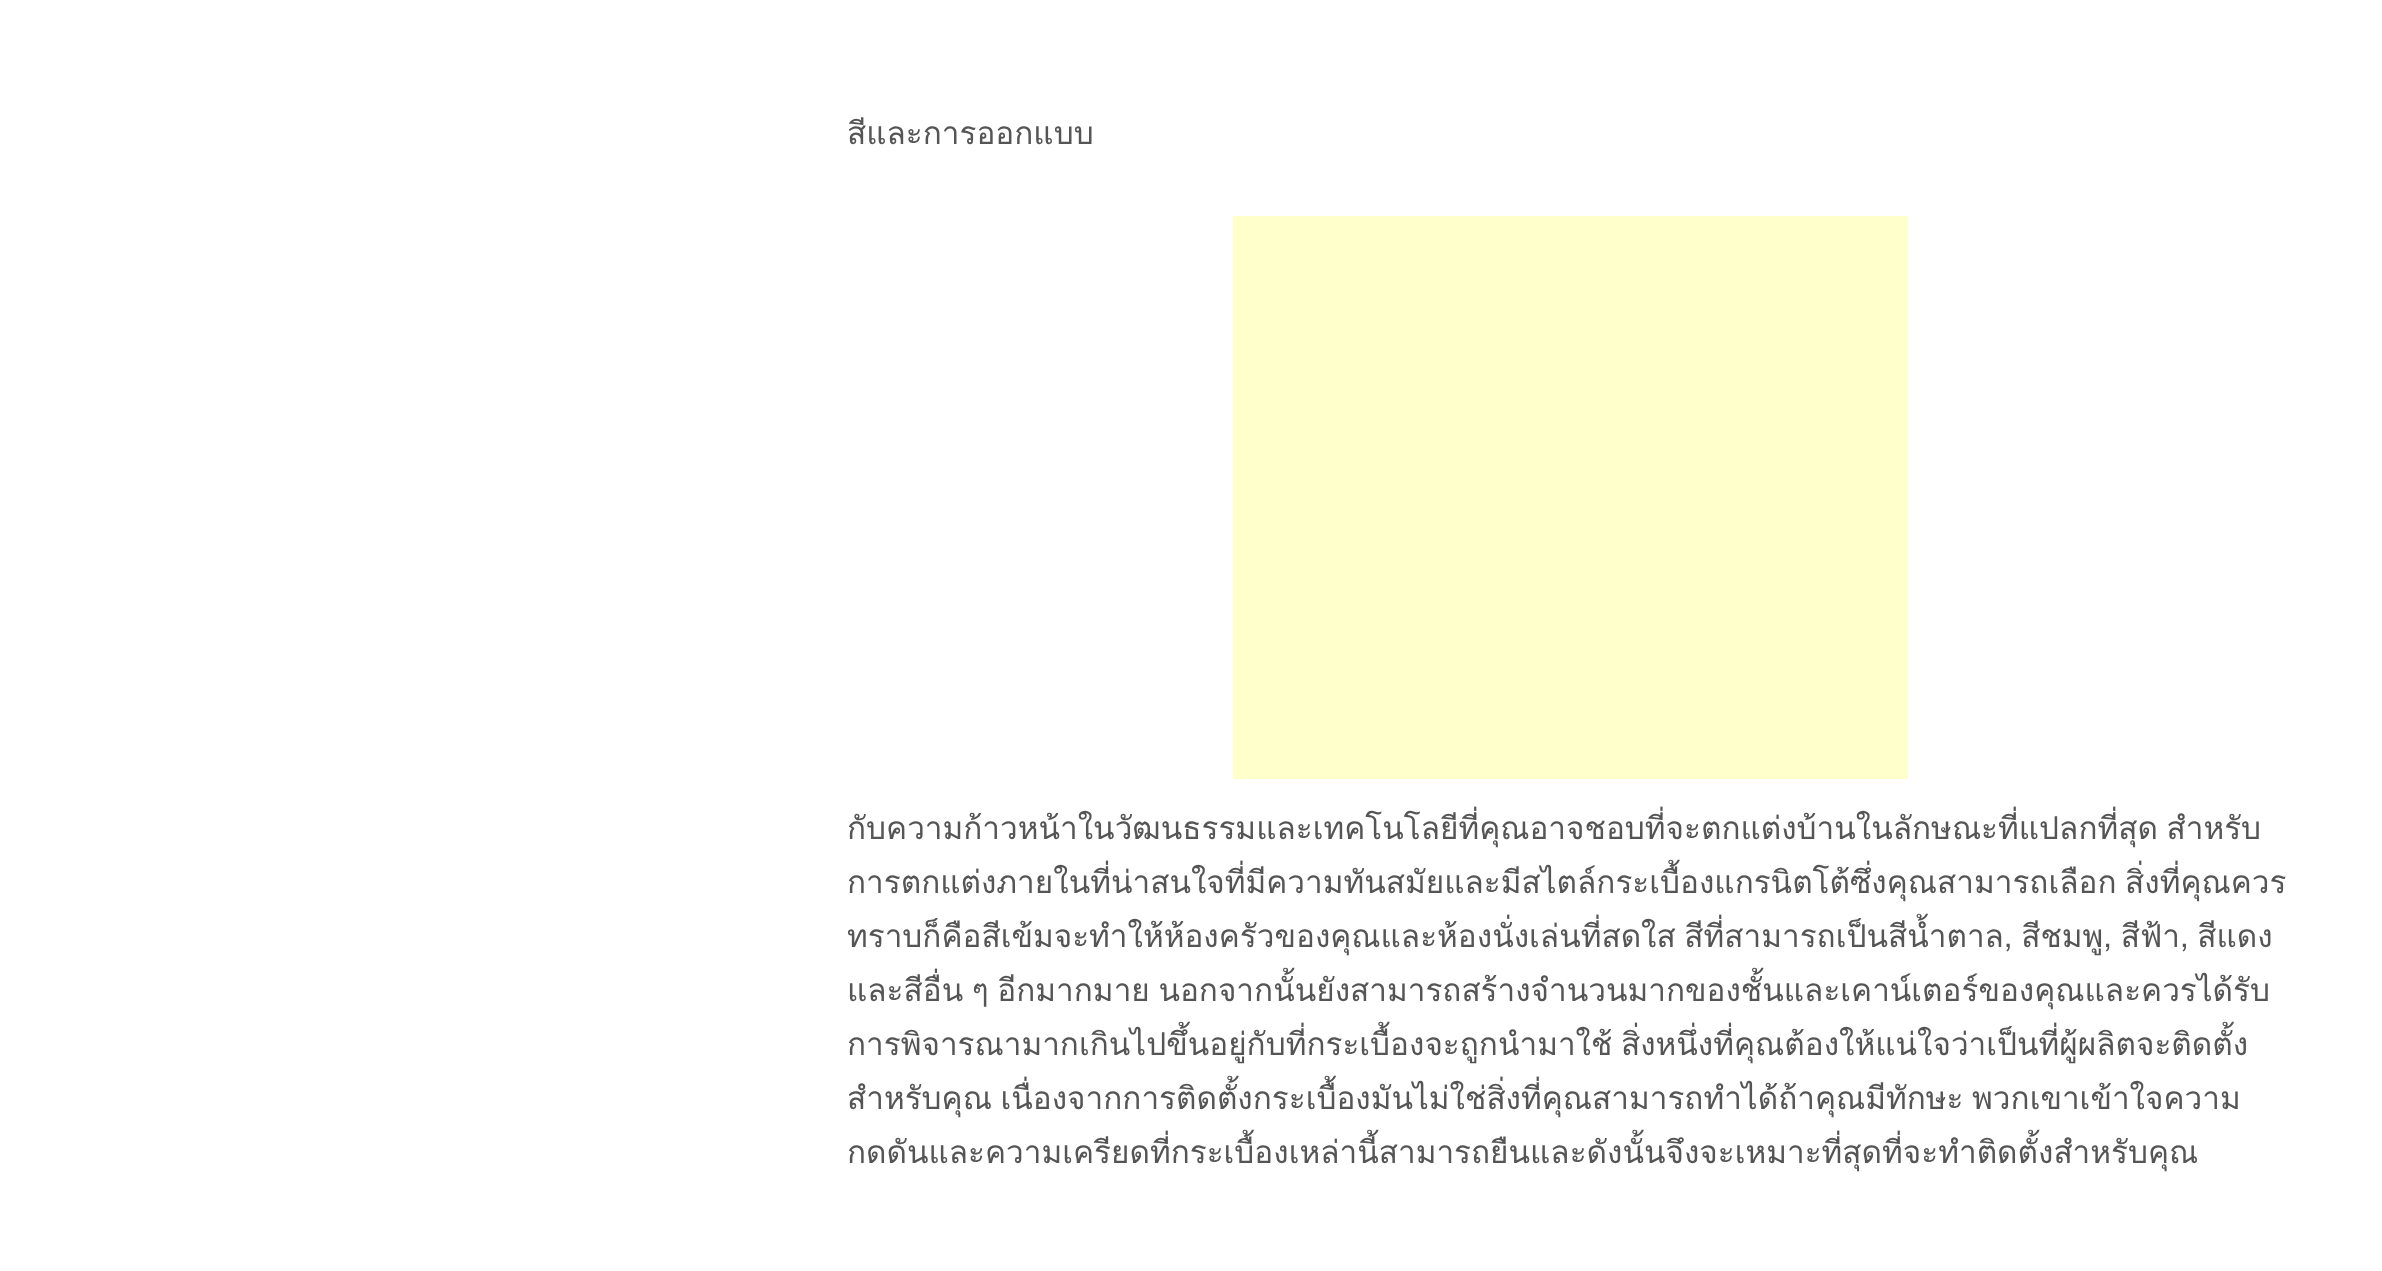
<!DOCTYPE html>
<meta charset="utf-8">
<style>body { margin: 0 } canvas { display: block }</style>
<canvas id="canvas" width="2382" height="1271"></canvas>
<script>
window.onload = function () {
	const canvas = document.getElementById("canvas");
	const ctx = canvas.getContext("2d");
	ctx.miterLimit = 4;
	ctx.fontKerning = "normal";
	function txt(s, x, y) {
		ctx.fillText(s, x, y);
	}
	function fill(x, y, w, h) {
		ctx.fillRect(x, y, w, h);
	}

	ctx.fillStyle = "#FFFFFF";
	fill(0, 0, 2382, 1271);
	ctx.fillStyle = "#FFFFCC";
	fill(1233, 216, 675, 563);
	ctx.font = "31.5px Loma";
	ctx.fillStyle = "#555555";
	txt("สีและการออกแบบ", 847, 144);
	ctx.wordSpacing = "-2px";
	txt("กับความก้าวหน้าในวัฒนธรรมและเทคโนโลยีที่คุณอาจชอบที่จะตกแต่งบ้านในลักษณะที่แปลกที่สุด สำหรับ", 847, 839);
	txt("การตกแต่งภายในที่น่าสนใจที่มีความทันสมัยและมีสไตล์กระเบื้องแกรนิตโต้ซึ่งคุณสามารถเลือก สิ่งที่คุณควร", 847, 893);
	txt("ทราบก็คือสีเข้มจะทำให้ห้องครัวของคุณและห้องนั่งเล่นที่สดใส สีที่สามารถเป็นสีน้ำตาล, สีชมพู, สีฟ้า, สีแดง", 847, 947);
	txt("และสีอื่น ๆ อีกมากมาย นอกจากนั้นยังสามารถสร้างจำนวนมากของชั้นและเคาน์เตอร์ของคุณและควรได้รับ", 847, 1001);
	txt("การพิจารณามากเกินไปขึ้นอยู่กับที่กระเบื้องจะถูกนำมาใช้ สิ่งหนึ่งที่คุณต้องให้แน่ใจว่าเป็นที่ผู้ผลิตจะติดตั้ง", 847, 1055);
	txt("สำหรับคุณ เนื่องจากการติดตั้งกระเบื้องมันไม่ใช่สิ่งที่คุณสามารถทำได้ถ้าคุณมีทักษะ พวกเขาเข้าใจความ", 847, 1109);
	ctx.wordSpacing = "0px";
	txt("กดดันและความเครียดที่กระเบื้องเหล่านี้สามารถยืนและดังนั้นจึงจะเหมาะที่สุดที่จะทำติดตั้งสำหรับคุณ", 847, 1163);
};
</script>
